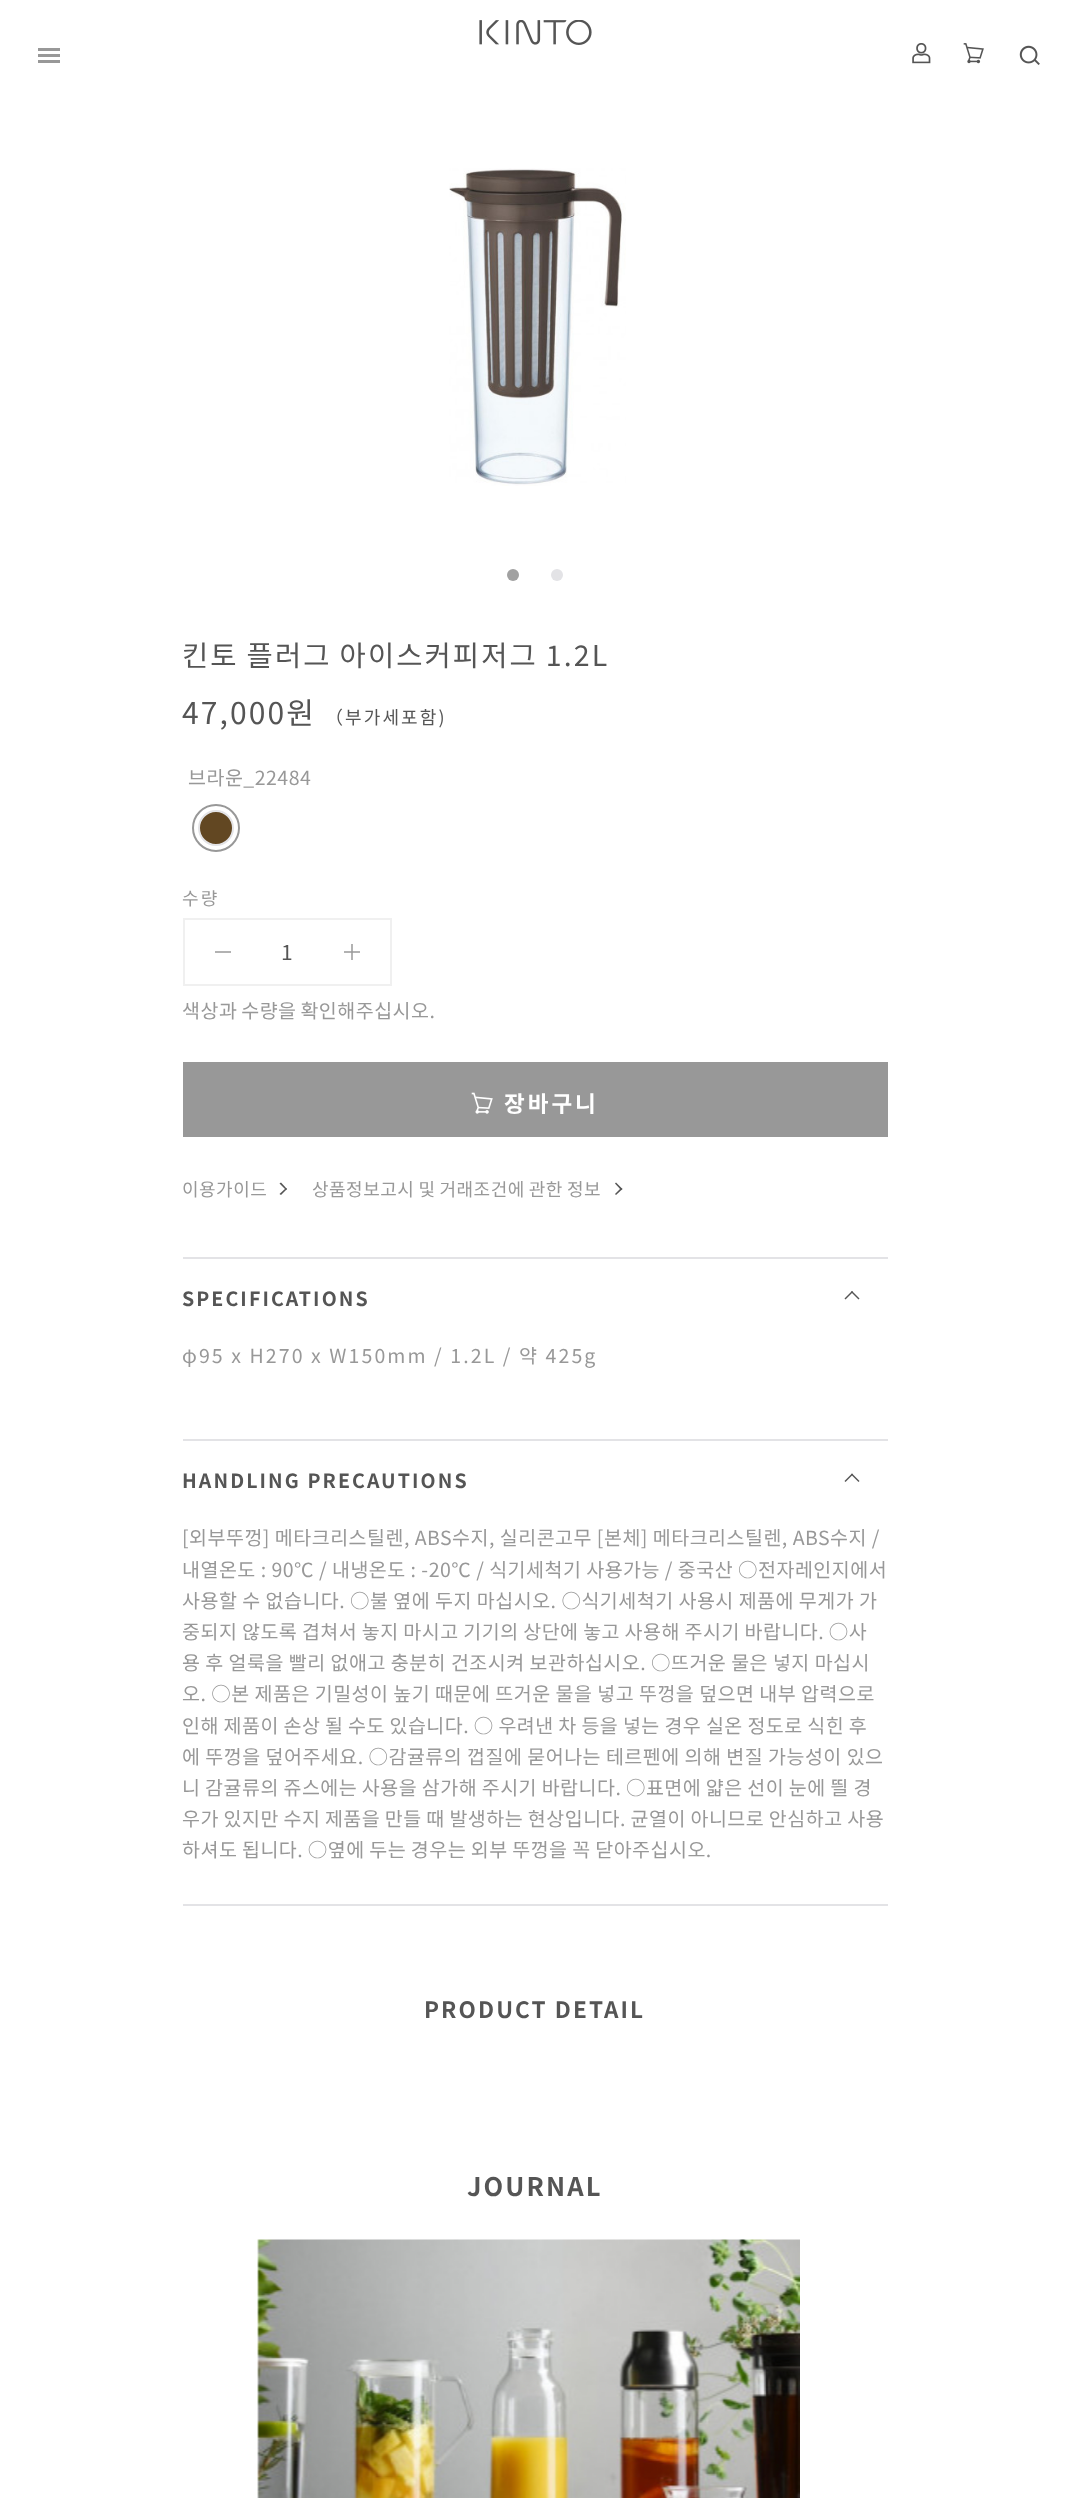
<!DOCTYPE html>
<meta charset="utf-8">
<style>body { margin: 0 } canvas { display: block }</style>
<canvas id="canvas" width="1069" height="2498"></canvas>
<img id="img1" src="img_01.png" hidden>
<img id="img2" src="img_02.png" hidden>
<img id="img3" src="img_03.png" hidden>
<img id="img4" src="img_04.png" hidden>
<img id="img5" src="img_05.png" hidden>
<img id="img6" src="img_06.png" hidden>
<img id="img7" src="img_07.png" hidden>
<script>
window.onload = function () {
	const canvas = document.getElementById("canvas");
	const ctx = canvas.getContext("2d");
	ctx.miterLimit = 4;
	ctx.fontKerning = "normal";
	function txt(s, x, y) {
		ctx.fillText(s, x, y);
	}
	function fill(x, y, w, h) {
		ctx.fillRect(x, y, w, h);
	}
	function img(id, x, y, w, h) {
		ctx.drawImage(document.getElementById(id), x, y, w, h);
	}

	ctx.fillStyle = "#FFFFFF";
	fill(0, 0, 1069, 2498);
	ctx.fillStyle = "#B2B2B2";
	fill(344, 951, 16, 2);
	img("img1", 479, 20, 113, 25);
	ctx.fillStyle = "#989898";
	fill(38, 48, 22, 3);
	fill(38, 54, 22, 3);
	fill(38, 60, 22, 3);
	img("img2", 912, 43, 19, 21);
	img("img3", 963, 43, 21, 21);
	img("img4", 1019, 45, 21, 20);
	img("img5", 449, 168, 177, 318);
	ctx.fillStyle = "#A1A1A1";
	ctx.beginPath();
	ctx.arc(513, 575, 6, 0, Math.PI * 2);
	ctx.fill();
	ctx.fillStyle = "#E3E3E6";
	ctx.beginPath();
	ctx.arc(557, 575, 6, 0, Math.PI * 2);
	ctx.fill();
	ctx.fillStyle = "#624722";
	ctx.beginPath();
	ctx.arc(216, 828, 17, 0, Math.PI * 2);
	ctx.fill();
	ctx.strokeStyle = "#E3E3E6";
	ctx.lineWidth = 2;
	ctx.stroke();
	ctx.beginPath();
	ctx.arc(216, 828, 23, 0, Math.PI * 2);
	ctx.strokeStyle = "#989898";
	ctx.stroke();
	ctx.strokeStyle = "#F0F0F0";
	ctx.strokeRect(184, 919, 207, 66);
	ctx.fillStyle = "#B2B2B2";
	fill(215, 951, 16, 2);
	fill(351, 944, 2, 16);
	ctx.fillStyle = "#9F9F9F";
	fill(351, 951, 2, 2);
	ctx.fillStyle = "#989898";
	fill(183, 1062, 705, 75);
	img("img6", 471, 1092, 22, 22);
	ctx.fillStyle = "#555555";
	ctx.beginPath();
	ctx.moveTo(279.5, 1183.5);
	ctx.lineTo(281, 1182.5);
	ctx.lineTo(287, 1189);
	ctx.lineTo(286, 1190);
	ctx.closePath();
	ctx.fill();
	ctx.beginPath();
	ctx.moveTo(279.5, 1194);
	ctx.lineTo(286, 1188);
	ctx.lineTo(287, 1189);
	ctx.lineTo(281, 1195);
	ctx.closePath();
	ctx.fill();
	ctx.beginPath();
	ctx.moveTo(615, 1183.5);
	ctx.lineTo(616, 1182.5);
	ctx.lineTo(622.5, 1189);
	ctx.lineTo(621, 1190);
	ctx.closePath();
	ctx.fill();
	ctx.beginPath();
	ctx.moveTo(615, 1194);
	ctx.lineTo(621, 1188);
	ctx.lineTo(622.5, 1189);
	ctx.lineTo(616, 1195);
	ctx.closePath();
	ctx.fill();
	ctx.fillStyle = "#E3E3E6";
	fill(183, 1257, 705, 2);
	fill(183, 1439, 705, 2);
	ctx.fillStyle = "#555555";
	ctx.beginPath();
	ctx.moveTo(845.5, 1299.5);
	ctx.lineTo(844.5, 1298.5);
	ctx.lineTo(852, 1291);
	ctx.lineTo(853, 1292);
	ctx.closePath();
	ctx.fill();
	ctx.beginPath();
	ctx.moveTo(858.5, 1299.5);
	ctx.lineTo(851, 1292);
	ctx.lineTo(852, 1291);
	ctx.lineTo(859.5, 1298.5);
	ctx.closePath();
	ctx.fill();
	ctx.fillStyle = "#E3E3E6";
	fill(183, 1904, 705, 2);
	ctx.fillStyle = "#555555";
	ctx.beginPath();
	ctx.moveTo(845.5, 1482);
	ctx.lineTo(844.5, 1481);
	ctx.lineTo(852, 1473.5);
	ctx.lineTo(853, 1474.5);
	ctx.closePath();
	ctx.fill();
	ctx.beginPath();
	ctx.moveTo(858.5, 1482);
	ctx.lineTo(851, 1474.5);
	ctx.lineTo(852, 1473.5);
	ctx.lineTo(859.5, 1481);
	ctx.closePath();
	ctx.fill();
	img("img7", 257, 2239, 543, 259);
	ctx.letterSpacing = "2.1px";
	ctx.wordSpacing = "-0.5px";
	ctx.font = "28.5px Noto Sans KR";
	txt("킨토 플러그 아이스커피저그 1.2L", 182, 666);
	ctx.wordSpacing = "0px";
	ctx.font = "30px Noto Sans KR";
	txt("47,000원", 182, 724);
	ctx.font = "18px Noto Sans KR";
	txt("（부가세포함)", 325, 724);
	ctx.letterSpacing = "0.5px";
	ctx.font = "19.5px Noto Sans KR";
	ctx.fillStyle = "#989898";
	txt("브라운_22484", 188, 785);
	ctx.letterSpacing = "2.1px";
	ctx.font = "18px Noto Sans KR";
	txt("수량", 182, 905);
	ctx.letterSpacing = "0px";
	ctx.font = "21px Noto Sans KR";
	ctx.fillStyle = "#555555";
	txt("1", 281, 960);
	ctx.letterSpacing = "0.5px";
	ctx.wordSpacing = "-1px";
	ctx.font = "19.5px Noto Sans KR";
	ctx.fillStyle = "#989898";
	txt("색상과 수량을 확인해주십시오.", 182, 1018);
	ctx.letterSpacing = "3px";
	ctx.wordSpacing = "0px";
	ctx.font = "bold 22.5px Noto Sans KR";
	ctx.fillStyle = "#FFFFFF";
	txt("장바구니", 504, 1112);
	ctx.letterSpacing = "0.5px";
	ctx.font = "18px Noto Sans KR";
	ctx.fillStyle = "#989898";
	txt("이용가이드", 182, 1196);
	ctx.wordSpacing = "-0.5px";
	txt("상품정보고시 및 거래조건에 관한 정보", 312, 1196);
	ctx.letterSpacing = "2.1px";
	ctx.wordSpacing = "0px";
	ctx.font = "bold 19.5px Noto Sans KR";
	ctx.fillStyle = "#555555";
	txt("SPECIFICATIONS", 182, 1306);
	ctx.font = "19.5px Noto Sans KR";
	ctx.fillStyle = "#989898";
	txt("φ95 x H270 x W150mm / 1.2L / 약 425g", 182, 1363);
	ctx.font = "bold 19.5px Noto Sans KR";
	ctx.fillStyle = "#555555";
	txt("HANDLING PRECAUTIONS", 182, 1488);
	ctx.letterSpacing = "0.5px";
	ctx.font = "19.5px Noto Sans KR";
	ctx.fillStyle = "#989898";
	txt("[외부뚜껑] 메타크리스틸렌, ABS수지, 실리콘고무 [본체] 메타크리스틸렌, ABS수지 /", 182, 1545);
	txt("내열온도 : 90℃ / 내냉온도 : -20℃ / 식기세척기 사용가능 / 중국산 ○전자레인지에서", 182, 1577);
	txt("사용할 수 없습니다. ○불 옆에 두지 마십시오. ○식기세척기 사용시 제품에 무게가 가", 182, 1608);
	ctx.wordSpacing = "-0.25px";
	txt("중되지 않도록 겹쳐서 놓지 마시고 기기의 상단에 놓고 사용해 주시기 바랍니다. ○사", 182, 1639);
	ctx.wordSpacing = "0px";
	txt("용 후 얼룩을 빨리 없애고 충분히 건조시켜 보관하십시오. ○뜨거운 물은 넣지 마십시", 182, 1670);
	txt("오. ○본 제품은 기밀성이 높기 때문에 뜨거운 물을 넣고 뚜껑을 덮으면 내부 압력으로", 182, 1701);
	ctx.wordSpacing = "-0.25px";
	txt("인해 제품이 손상 될 수도 있습니다. ○ 우려낸 차 등을 넣는 경우 실온 정도로 식힌 후", 182, 1733);
	ctx.wordSpacing = "0px";
	txt("에 뚜껑을 덮어주세요. ○감귤류의 껍질에 묻어나는 테르펜에 의해 변질 가능성이 있으", 182, 1764);
	ctx.wordSpacing = "-0.25px";
	txt("니 감귤류의 쥬스에는 사용을 삼가해 주시기 바랍니다. ○표면에 얇은 선이 눈에 띌 경", 182, 1795);
	txt("우가 있지만 수지 제품을 만들 때 발생하는 현상입니다. 균열이 아니므로 안심하고 사용", 182, 1826);
	txt("하셔도 됩니다. ○옆에 두는 경우는 외부 뚜껑을 꼭 닫아주십시오.", 182, 1857);
	ctx.letterSpacing = "2.1px";
	ctx.wordSpacing = "0px";
	ctx.font = "bold 22.5px Noto Sans KR";
	ctx.fillStyle = "#555555";
	txt("PRODUCT DETAIL", 424, 2018);
	ctx.font = "bold 25.5px Noto Sans KR";
	txt("JOURNAL", 467, 2196);
};
</script>
